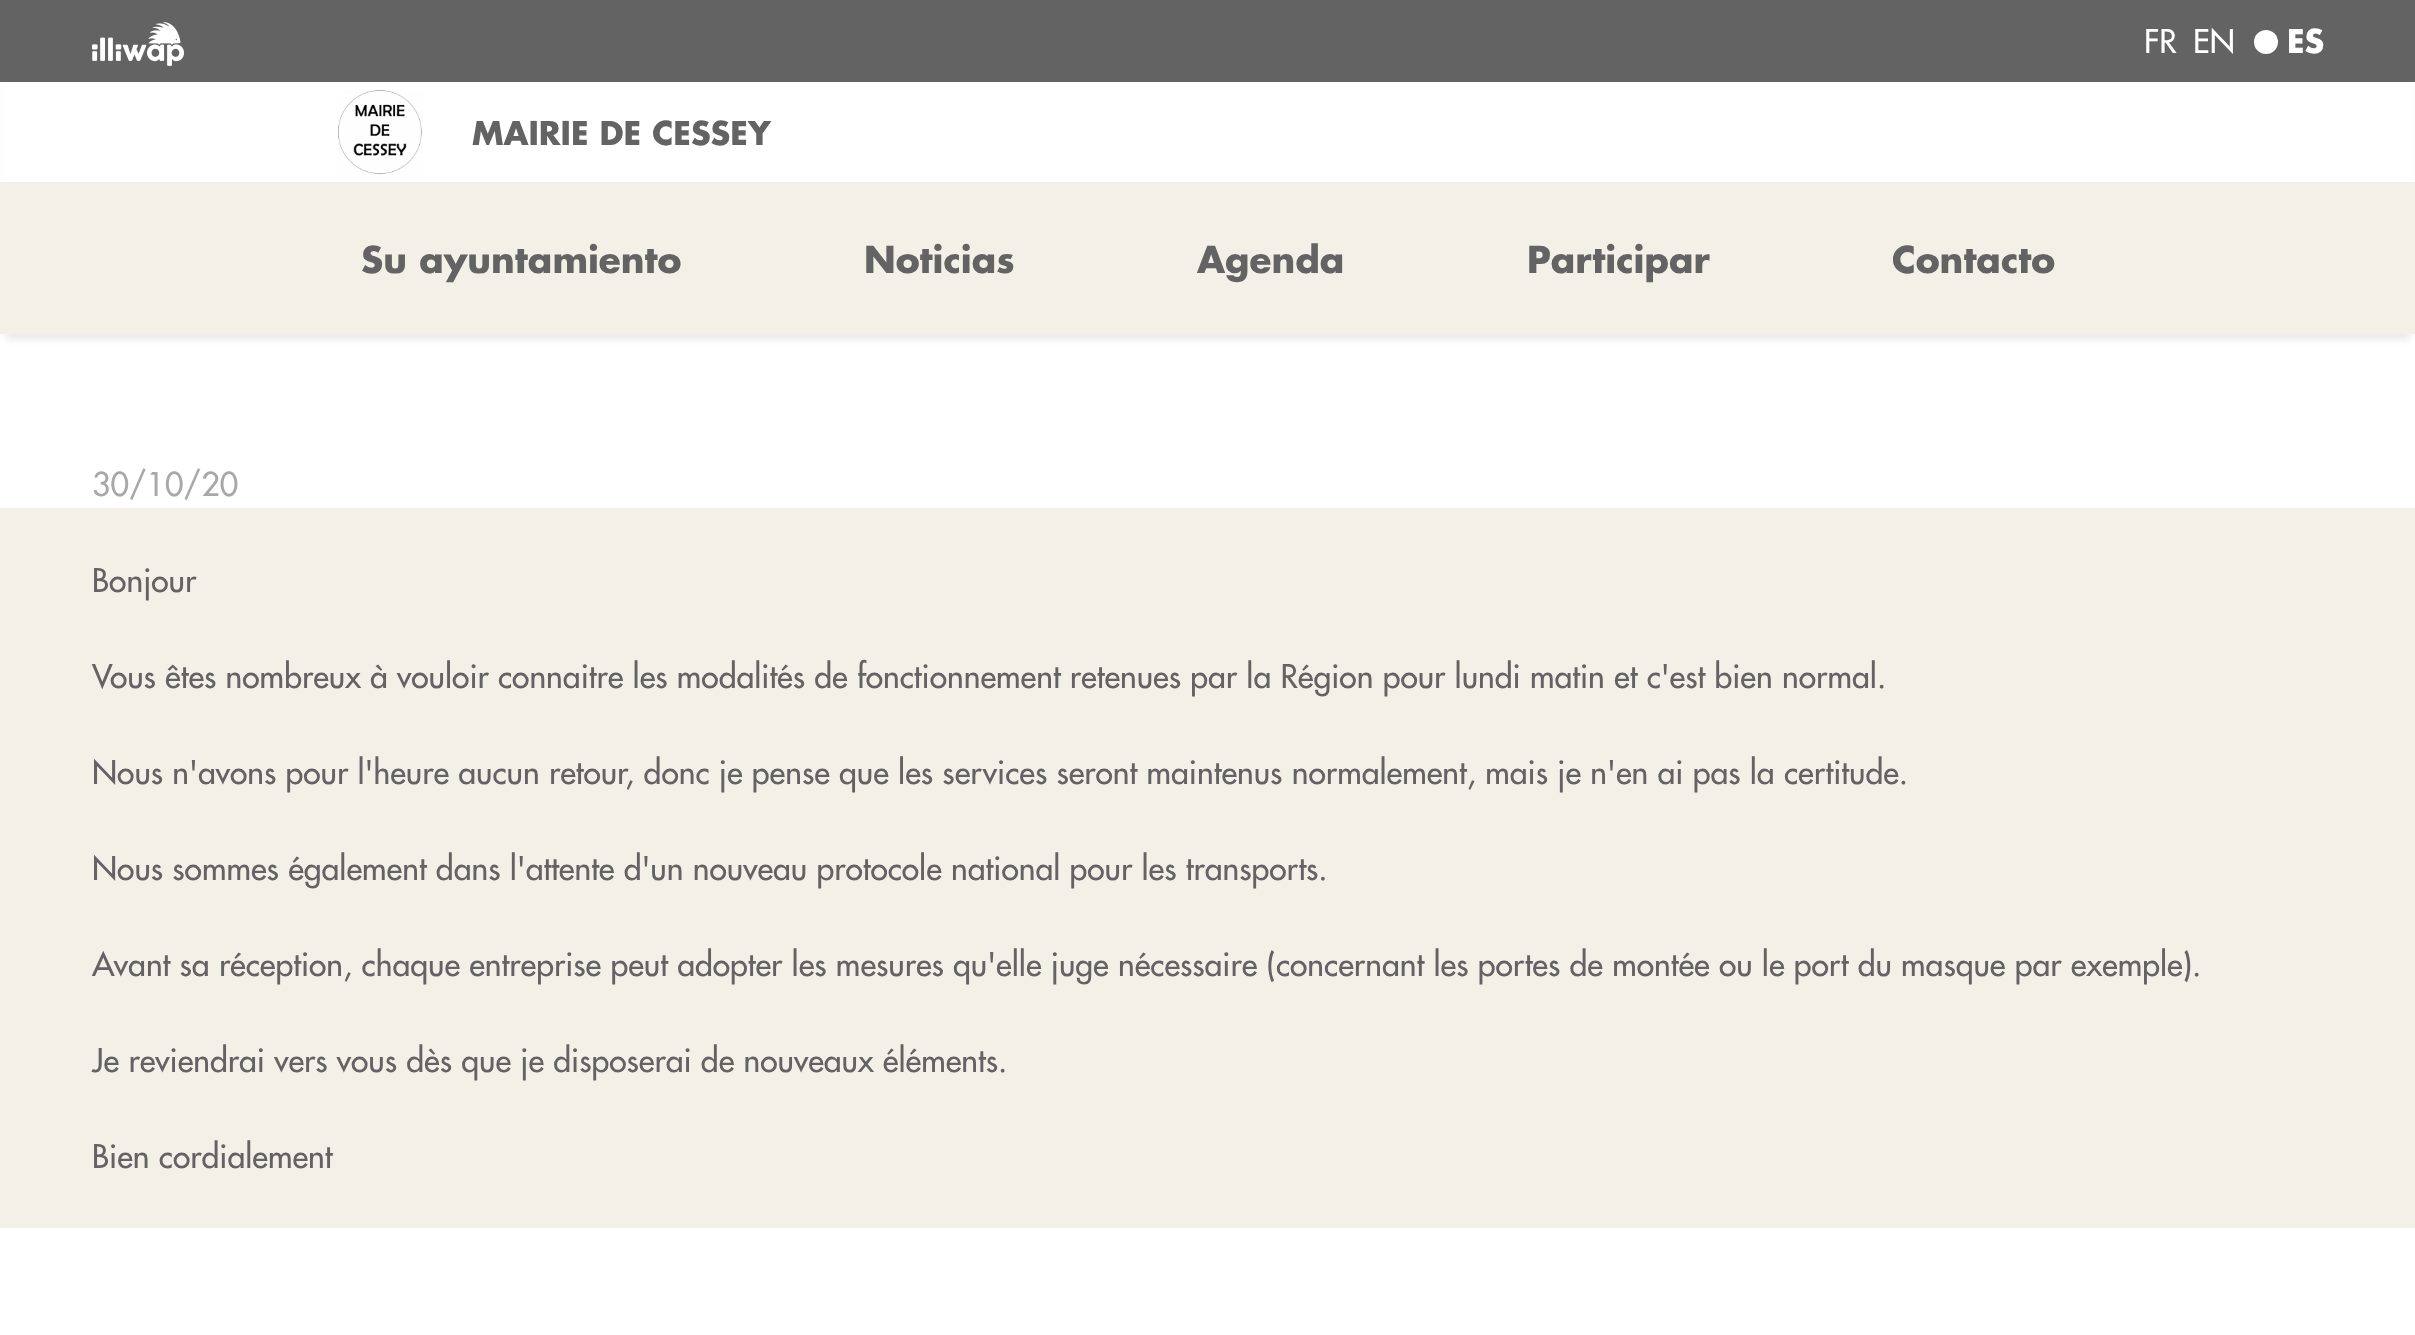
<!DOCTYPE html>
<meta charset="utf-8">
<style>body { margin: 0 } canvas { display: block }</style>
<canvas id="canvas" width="2415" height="1335"></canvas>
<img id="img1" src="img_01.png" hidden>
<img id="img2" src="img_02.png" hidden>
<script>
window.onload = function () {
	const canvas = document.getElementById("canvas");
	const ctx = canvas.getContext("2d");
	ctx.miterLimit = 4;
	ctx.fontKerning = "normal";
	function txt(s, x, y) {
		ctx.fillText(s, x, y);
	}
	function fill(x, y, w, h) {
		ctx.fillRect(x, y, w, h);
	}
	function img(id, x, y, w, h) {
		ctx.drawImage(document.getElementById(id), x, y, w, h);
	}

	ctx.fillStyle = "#FFFFFF";
	fill(0, 0, 2415, 1335);
	ctx.fillStyle = "rgba(0, 0, 0, 0.08)";
	ctx.filter = "blur(3px)";
	ctx.beginPath();
	ctx.rect(6, 18, 2404, 322);
	ctx.fill();
	ctx.filter = "none";
	ctx.fillStyle = "#FFFFFF";
	fill(3, 82, 2410, 100);
	ctx.fillStyle = "#646363";
	fill(0, 0, 2415, 82);
	img("img1", 92, 22, 92, 44);
	ctx.fillStyle = "#FFFFFF";
	ctx.beginPath();
	ctx.arc(2266, 42, 12, 0, Math.PI * 2);
	ctx.fill();
	img("img2", 337, 90, 86, 85);
	ctx.fillStyle = "#F3F0E8";
	fill(0, 182, 2415, 152);
	fill(0, 508, 2415, 720);
	ctx.font = "32px Futura";
	ctx.fillStyle = "#FFFFFF";
	txt("FR", 2144, 53);
	txt("EN", 2193, 53);
	ctx.font = "bold 32px Futura";
	txt("ES", 2287, 53);
	ctx.fillStyle = "#646363";
	txt("MAIRIE DE CESSEY", 472, 145);
	ctx.font = "bold 36px Futura";
	txt("Su ayuntamiento", 361, 273);
	txt("Noticias", 864, 273);
	txt("Agenda", 1197, 273);
	txt("Participar", 1527, 273);
	txt("Contacto", 1892, 273);
	ctx.font = "32px Futura";
	ctx.fillStyle = "#A8A8A8";
	txt("30/10/20", 92, 496);
	ctx.fillStyle = "#646363";
	txt("Bonjour", 92, 592);
	txt("Vous êtes nombreux à vouloir connaitre les modalités de fonctionnement retenues par la Région pour lundi matin et c'est bien normal.", 92, 688);
	txt("Nous n'avons pour l'heure aucun retour, donc je pense que les services seront maintenus normalement, mais je n'en ai pas la certitude.", 92, 784);
	txt("Nous sommes également dans l'attente d'un nouveau protocole national pour les transports.", 92, 880);
	txt("Avant sa réception, chaque entreprise peut adopter les mesures qu'elle juge nécessaire (concernant les portes de montée ou le port du masque par exemple).", 92, 976);
	txt("Je reviendrai vers vous dès que je disposerai de nouveaux éléments.", 92, 1072);
	txt("Bien cordialement", 92, 1168);
};
</script>
